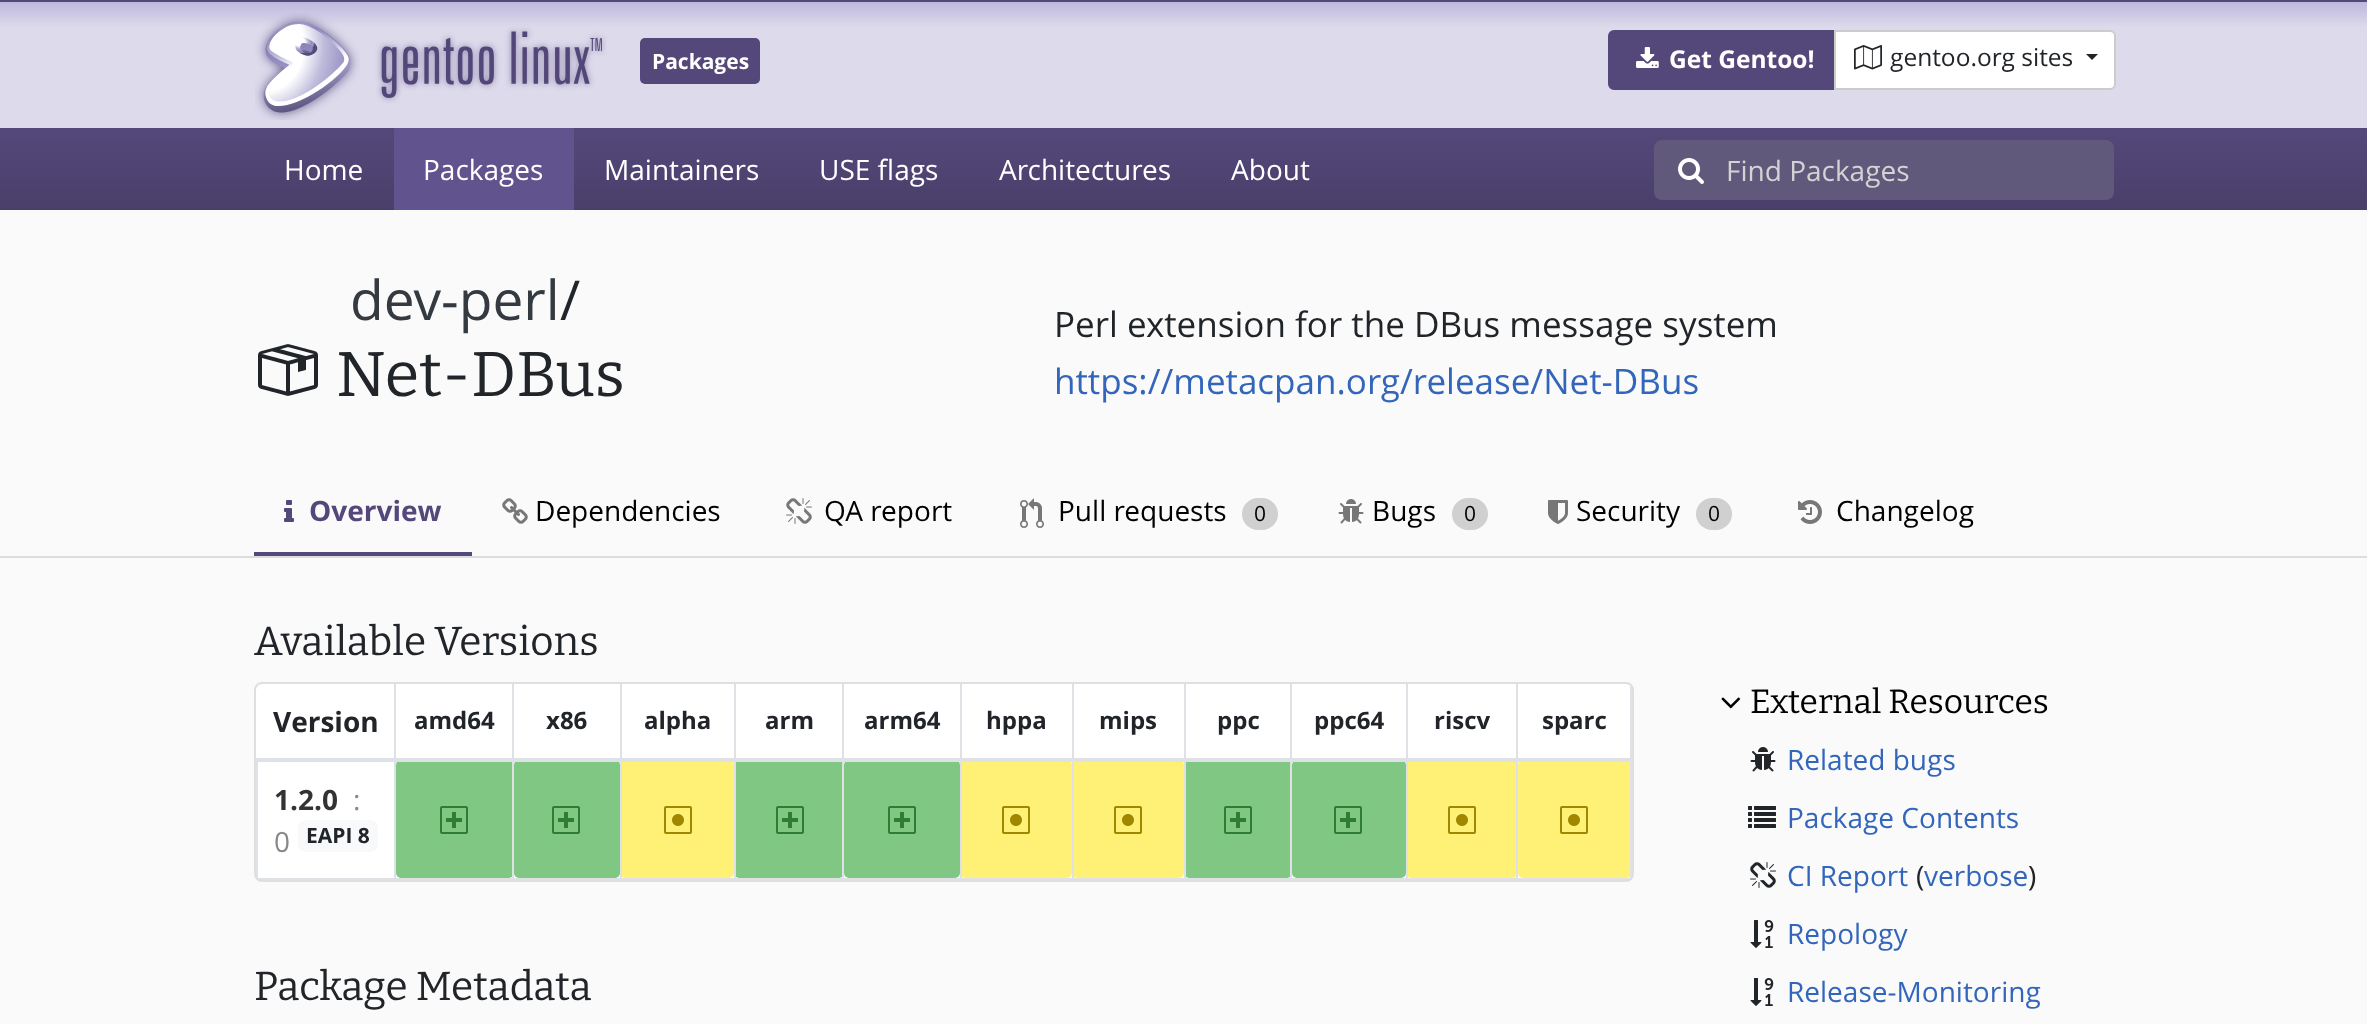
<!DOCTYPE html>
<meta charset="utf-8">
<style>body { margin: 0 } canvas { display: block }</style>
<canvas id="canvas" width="2367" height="1024"></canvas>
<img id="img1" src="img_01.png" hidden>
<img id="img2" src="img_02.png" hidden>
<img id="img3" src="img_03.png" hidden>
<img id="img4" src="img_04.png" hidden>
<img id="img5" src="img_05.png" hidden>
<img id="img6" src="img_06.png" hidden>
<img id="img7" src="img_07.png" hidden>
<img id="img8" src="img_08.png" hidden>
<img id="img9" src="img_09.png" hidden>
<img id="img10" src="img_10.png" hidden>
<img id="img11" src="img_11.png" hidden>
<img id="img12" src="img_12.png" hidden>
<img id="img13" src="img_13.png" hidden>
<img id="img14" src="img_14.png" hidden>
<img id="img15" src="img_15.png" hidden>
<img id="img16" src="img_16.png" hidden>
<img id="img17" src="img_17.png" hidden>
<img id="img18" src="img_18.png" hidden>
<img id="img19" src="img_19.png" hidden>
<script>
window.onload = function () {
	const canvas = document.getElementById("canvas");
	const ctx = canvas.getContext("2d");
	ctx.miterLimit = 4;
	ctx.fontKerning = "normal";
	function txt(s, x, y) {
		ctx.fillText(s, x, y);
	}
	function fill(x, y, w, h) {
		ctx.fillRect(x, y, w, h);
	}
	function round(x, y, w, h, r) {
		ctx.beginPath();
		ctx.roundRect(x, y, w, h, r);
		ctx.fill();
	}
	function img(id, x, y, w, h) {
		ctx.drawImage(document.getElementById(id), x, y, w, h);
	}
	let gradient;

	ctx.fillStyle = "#FAFAFA";
	fill(0, 0, 2367, 1024);
	ctx.fillStyle = "#54487A";
	fill(0, 0, 2367, 2);
	gradient = ctx.createLinearGradient(1184, 2, 1184, 128);
	gradient.addColorStop(0, "#BEB8DB");
	gradient.addColorStop(0.2, "#DDDAEC");
	ctx.fillStyle = gradient;
	fill(0, 2, 2367, 126);
	img("img1", 255, 13, 352, 107);
	ctx.fillStyle = "#54487A";
	round(640, 38, 120, 46, 5);
	ctx.beginPath();
	ctx.roundRect(1609, 31, 226, 58, [5, 0, 0, 5]);
	ctx.fill();
	ctx.strokeStyle = "#54487A";
	ctx.lineWidth = 2;
	ctx.stroke();
	img("img2", 1636, 47, 23, 21);
	ctx.fillStyle = "#FFFFFF";
	ctx.beginPath();
	ctx.roundRect(1835, 31, 280, 58, [0, 5, 5, 0]);
	ctx.fill();
	ctx.strokeStyle = "#CCCCCC";
	ctx.stroke();
	img("img3", 1854, 45, 28, 25);
	ctx.fillStyle = "#212529";
	ctx.beginPath();
	ctx.moveTo(2086, 54);
	ctx.lineTo(2098, 54);
	ctx.lineTo(2092, 60);
	ctx.closePath();
	ctx.fill();
	gradient = ctx.createLinearGradient(1184, 128, 1184, 210);
	gradient.addColorStop(0, "#54487A");
	gradient.addColorStop(1, "#493F6A");
	ctx.fillStyle = gradient;
	fill(0, 128, 2367, 82);
	ctx.fillStyle = "#61538D";
	fill(394, 128, 180, 82);
	ctx.fillStyle = "#61597B";
	ctx.beginPath();
	ctx.roundRect(1654, 140, 74, 60, [8, 0, 0, 8]);
	ctx.fill();
	img("img4", 1678, 158, 26, 26);
	ctx.beginPath();
	ctx.roundRect(1726, 140, 388, 60, [0, 8, 8, 0]);
	ctx.fill();
	img("img5", 258, 344, 60, 52);
	ctx.fillStyle = "#54487A";
	fill(254, 552, 218, 4);
	img("img6", 284, 500, 10, 22);
	img("img7", 502, 498, 26, 26);
	img("img8", 786, 498, 26, 26);
	img("img9", 1020, 498, 24, 30);
	ctx.fillStyle = "#D0D0D0";
	round(1242, 498, 36, 32, 16);
	img("img10", 1338, 499, 26, 25);
	round(1452, 498, 36, 32, 16);
	img("img11", 1548, 500, 20, 24);
	round(1696, 498, 36, 32, 16);
	img("img12", 1798, 500, 24, 24);
	ctx.fillStyle = "#DDDDDD";
	fill(0, 556, 2367, 2);
	ctx.fillStyle = "#FFFFFF";
	ctx.beginPath();
	ctx.roundRect(255, 683, 1378, 198, 7);
	ctx.fill();
	ctx.strokeStyle = "#DFDFDF";
	ctx.stroke();
	ctx.fillStyle = "#FFF176";
	round(1518, 760, 114, 118, 5);
	ctx.fillStyle = "#DEE2E6";
	fill(1630, 684, 2, 196);
	fill(1516, 878, 116, 2);
	ctx.fillStyle = "#FFF176";
	round(1406, 760, 112, 118, 5);
	ctx.fillStyle = "#DEE2E6";
	fill(1516, 684, 2, 196);
	fill(1406, 878, 112, 2);
	fill(1406, 684, 2, 196);
	fill(1290, 878, 118, 2);
	ctx.fillStyle = "#81C784";
	round(1184, 760, 108, 118, 5);
	ctx.fillStyle = "#DEE2E6";
	fill(1290, 684, 2, 196);
	fill(1184, 878, 108, 2);
	fill(1184, 684, 2, 196);
	fill(1072, 878, 114, 2);
	ctx.fillStyle = "#FFF176";
	round(1072, 760, 112, 118, 5);
	ctx.fillStyle = "#DEE2E6";
	fill(1072, 684, 2, 196);
	fill(960, 878, 114, 2);
	ctx.fillStyle = "#FFF176";
	round(960, 760, 112, 118, 5);
	ctx.fillStyle = "#DEE2E6";
	fill(960, 684, 2, 196);
	fill(842, 878, 120, 2);
	ctx.fillStyle = "#81C784";
	round(734, 760, 110, 118, 5);
	ctx.fillStyle = "#DEE2E6";
	fill(842, 684, 2, 196);
	fill(734, 878, 110, 2);
	fill(734, 684, 2, 196);
	fill(620, 878, 116, 2);
	ctx.fillStyle = "#FFF176";
	round(620, 760, 114, 118, 5);
	ctx.fillStyle = "#DEE2E6";
	fill(620, 684, 2, 196);
	fill(512, 878, 110, 2);
	ctx.fillStyle = "#81C784";
	round(396, 760, 118, 118, 5);
	ctx.fillStyle = "#DEE2E6";
	fill(512, 684, 2, 196);
	fill(394, 878, 120, 2);
	fill(394, 684, 2, 196);
	fill(256, 878, 140, 2);
	fill(256, 758, 2, 122);
	ctx.fillStyle = "#81C784";
	round(514, 760, 106, 118, 5);
	round(844, 760, 116, 118, 5);
	round(1292, 760, 114, 118, 5);
	ctx.fillStyle = "#DEE2E6";
	fill(256, 758, 1376, 4);
	ctx.fillStyle = "#F8F9FA";
	round(298, 820, 80, 32, 8);
	img("img13", 440, 806, 28, 28);
	img("img13", 552, 806, 28, 28);
	img("img14", 664, 806, 28, 28);
	img("img13", 776, 806, 28, 28);
	img("img13", 888, 806, 28, 28);
	img("img14", 1002, 806, 28, 28);
	img("img14", 1114, 806, 28, 28);
	img("img13", 1224, 806, 28, 28);
	img("img13", 1334, 806, 28, 28);
	img("img14", 1448, 806, 28, 28);
	img("img14", 1560, 806, 28, 28);
	img("img15", 1721, 697, 20, 12);
	img("img16", 1750, 747, 26, 25);
	img("img17", 1748, 806, 28, 22);
	img("img18", 1750, 862, 26, 26);
	img("img19", 1750, 920, 24, 28);
	img("img19", 1750, 978, 24, 28);
	ctx.font = "bold 21px Open Sans";
	ctx.fillStyle = "#FFFFFF";
	txt("Packages", 652, 69);
	ctx.font = "bold 24.5px Open Sans";
	txt("Get Gentoo!", 1669, 68);
	ctx.font = "24.5px Open Sans";
	ctx.fillStyle = "#212529";
	txt("gentoo.org sites", 1890, 66);
	ctx.font = "28px Open Sans";
	ctx.fillStyle = "#FFFFFF";
	txt("Home", 284, 180);
	txt("Packages", 423, 180);
	txt("Maintainers", 604, 180);
	txt("USE flags", 819, 180);
	txt("Architectures", 999, 180);
	txt("About", 1231, 180);
	ctx.fillStyle = "#D3D3D3";
	txt("Find Packages", 1726, 181);
	ctx.font = "55px Open Sans";
	ctx.fillStyle = "#343A40";
	txt("dev-perl", 350, 320);
	ctx.fillStyle = "#212529";
	txt("/", 560, 320);
	ctx.font = "63px Bitter";
	txt("Net-DBus", 336, 396);
	ctx.font = "35px Open Sans";
	txt("Perl extension for the DBus message system", 1054, 337);
	ctx.fillStyle = "#3366BB";
	txt("https://metacpan.org/release/Net-DBus", 1054, 394);
	ctx.font = "bold 28px Open Sans";
	ctx.fillStyle = "#54487A";
	txt("Overview", 309, 521);
	ctx.font = "28px Open Sans";
	ctx.fillStyle = "#000000";
	txt("Dependencies", 535, 521);
	txt("QA report", 824, 521);
	txt("Pull requests", 1058, 521);
	ctx.font = "21px Open Sans";
	txt("0", 1254, 521);
	ctx.font = "28px Open Sans";
	txt("Bugs", 1372, 521);
	ctx.font = "21px Open Sans";
	txt("0", 1464, 521);
	ctx.font = "28px Open Sans";
	txt("Security", 1576, 521);
	ctx.font = "21px Open Sans";
	txt("0", 1708, 521);
	ctx.font = "28px Open Sans";
	txt("Changelog", 1836, 521);
	ctx.font = "40.5px Bitter";
	ctx.fillStyle = "#212529";
	txt("Available Versions", 254, 655);
	ctx.font = "bold 28px Open Sans";
	txt("Version", 273, 732);
	ctx.font = "bold 24px Open Sans";
	txt("amd64", 414, 729);
	txt("x86", 546, 729);
	txt("alpha", 644, 729);
	txt("arm", 765, 729);
	txt("arm64", 864, 729);
	txt("hppa", 986, 729);
	txt("mips", 1099, 729);
	txt("ppc", 1217, 729);
	txt("ppc64", 1314, 729);
	txt("riscv", 1434, 729);
	txt("sparc", 1542, 729);
	ctx.font = "bold 28px Open Sans";
	ctx.fillStyle = "#333333";
	txt("1.2.0", 274, 810);
	ctx.font = "28px Open Sans";
	ctx.fillStyle = "#888888";
	txt(":", 353, 810);
	txt("0", 274, 852);
	ctx.font = "bold 21px Open Sans";
	ctx.fillStyle = "#212529";
	txt("EAPI 8", 306, 843);
	ctx.font = "40.5px Bitter";
	txt("Package Metadata", 254, 1000);
	ctx.font = "33.5px Bitter";
	ctx.fillStyle = "#000000";
	txt("External Resources", 1750, 713);
	ctx.font = "28px Open Sans";
	ctx.fillStyle = "#3366BB";
	txt("Related bugs", 1787, 770);
	txt("Package Contents", 1787, 828);
	txt("CI Report", 1787, 886);
	ctx.fillStyle = "#212529";
	txt("(", 1916, 886);
	ctx.fillStyle = "#3366BB";
	txt("verbose", 1924, 886);
	ctx.fillStyle = "#212529";
	txt(")", 2028, 886);
	ctx.fillStyle = "#3366BB";
	txt("Repology", 1787, 944);
	txt("Release-Monitoring", 1787, 1002);
};
</script>
